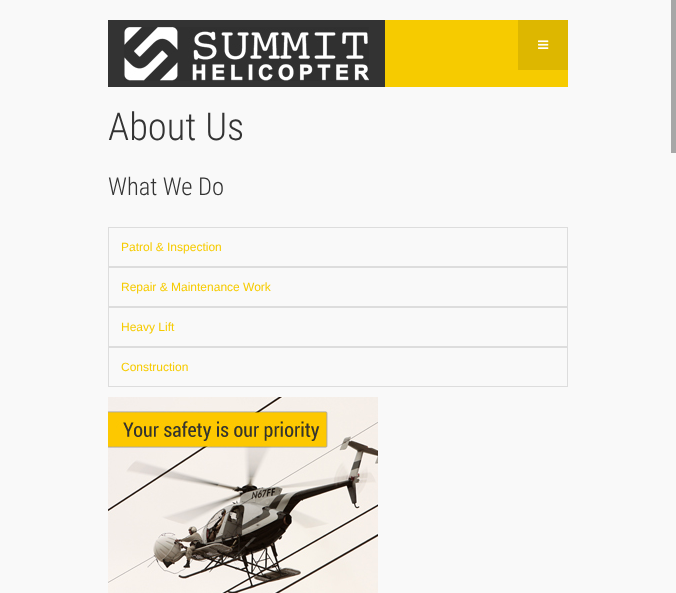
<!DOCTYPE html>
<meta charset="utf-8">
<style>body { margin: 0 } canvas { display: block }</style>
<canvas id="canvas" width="676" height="593"></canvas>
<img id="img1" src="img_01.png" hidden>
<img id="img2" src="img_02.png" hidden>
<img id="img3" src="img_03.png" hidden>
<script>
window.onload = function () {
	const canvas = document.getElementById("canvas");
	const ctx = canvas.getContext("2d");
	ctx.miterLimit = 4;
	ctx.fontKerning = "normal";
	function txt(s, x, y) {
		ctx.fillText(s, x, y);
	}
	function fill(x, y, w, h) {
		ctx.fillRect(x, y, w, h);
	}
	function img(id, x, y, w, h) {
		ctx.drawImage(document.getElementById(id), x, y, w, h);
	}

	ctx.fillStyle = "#F9F9F9";
	fill(0, 0, 676, 593);
	ctx.fillStyle = "#F6CB00";
	fill(385, 20, 183, 67);
	ctx.fillStyle = "#333333";
	fill(108, 20, 277, 67);
	img("img1", 124, 27, 245, 54);
	ctx.fillStyle = "#DDB700";
	fill(518, 20, 50, 50);
	img("img2", 538, 40, 11, 9);
	ctx.fillStyle = "#A7A7A7";
	fill(671, 0, 5, 153);
	ctx.strokeStyle = "#DDDDDD";
	ctx.strokeRect(108.5, 227.5, 459, 39);
	ctx.strokeRect(108.5, 267.5, 459, 39);
	ctx.strokeRect(108.5, 307.5, 459, 39);
	ctx.strokeRect(108.5, 347.5, 459, 39);
	img("img3", 108, 397, 270, 196);
	ctx.font = "300 38.5px Roboto Condensed";
	ctx.fillStyle = "#333333";
	txt("About Us", 108, 140);
	ctx.font = "300 24.5px Roboto Condensed";
	txt("What We Do", 108, 195);
	ctx.font = "12px Liberation Sans";
	ctx.fillStyle = "#F6CB00";
	txt("Patrol & Inspection", 121, 251);
	txt("Repair & Maintenance Work", 121, 291);
	txt("Heavy Lift", 121, 331);
	txt("Construction", 121, 371);
};
</script>
